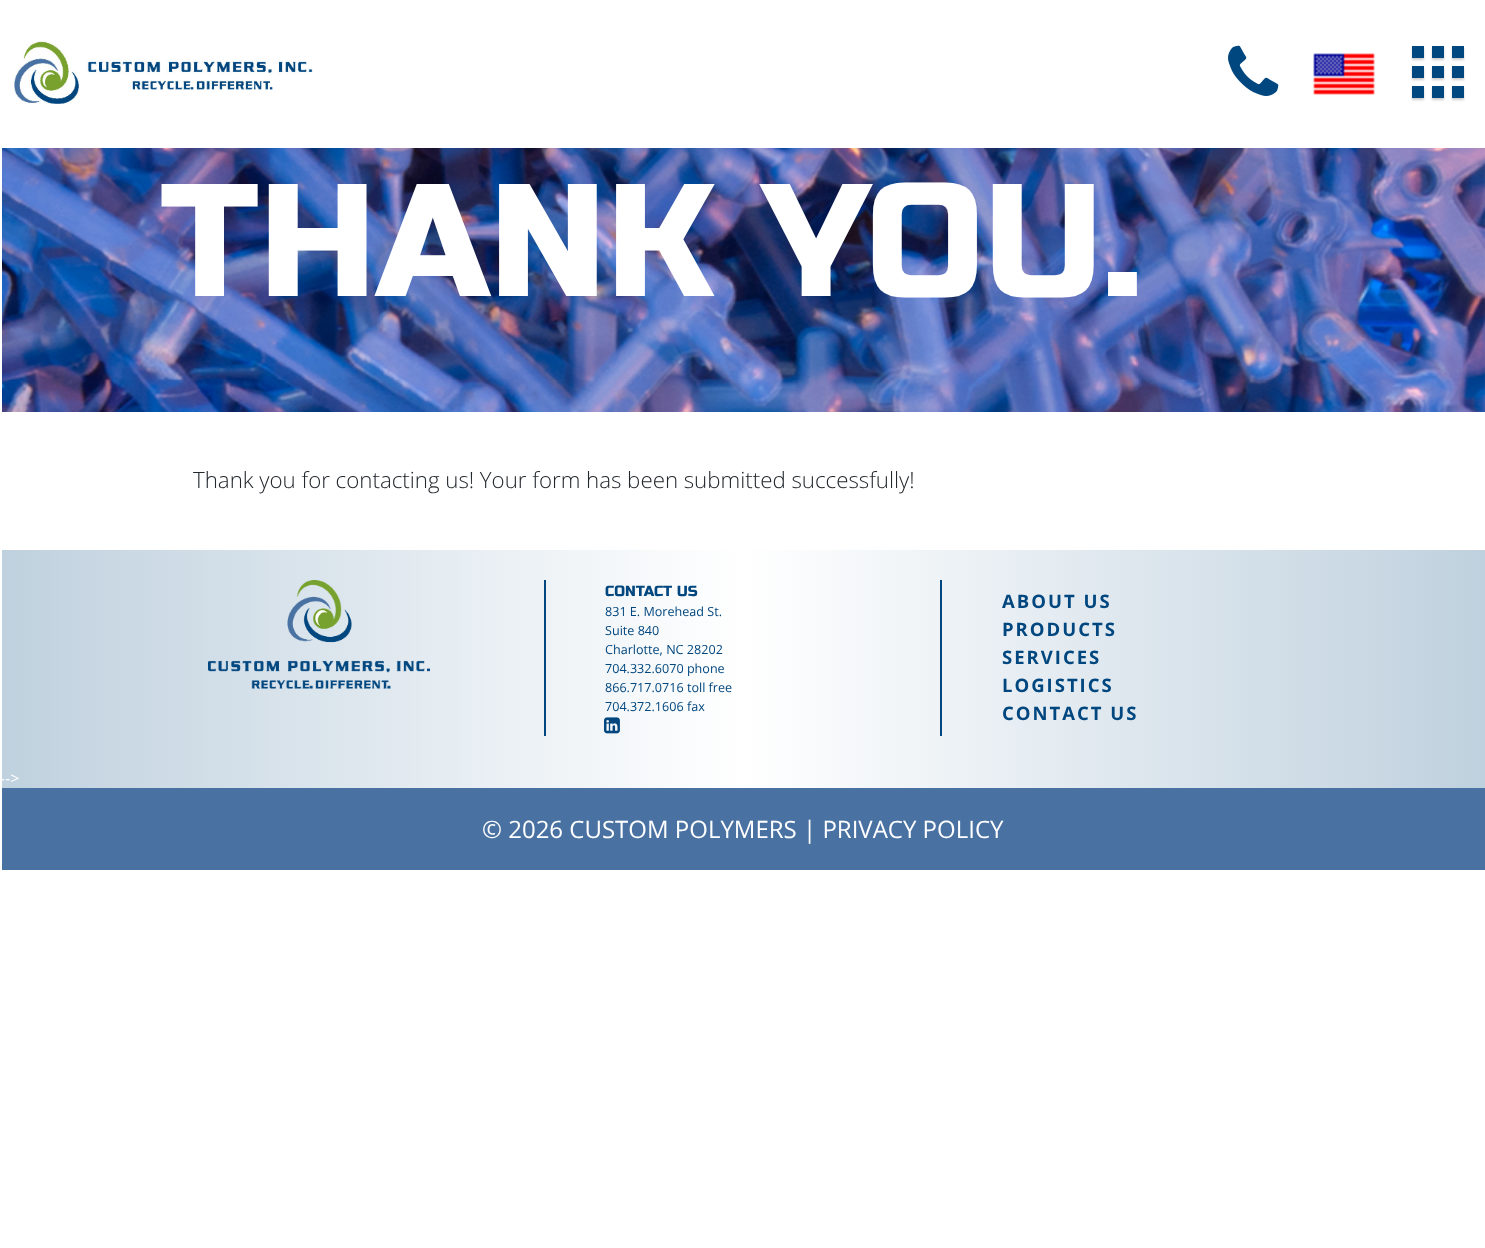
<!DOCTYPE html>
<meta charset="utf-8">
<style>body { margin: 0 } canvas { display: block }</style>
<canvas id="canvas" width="1485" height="1248"></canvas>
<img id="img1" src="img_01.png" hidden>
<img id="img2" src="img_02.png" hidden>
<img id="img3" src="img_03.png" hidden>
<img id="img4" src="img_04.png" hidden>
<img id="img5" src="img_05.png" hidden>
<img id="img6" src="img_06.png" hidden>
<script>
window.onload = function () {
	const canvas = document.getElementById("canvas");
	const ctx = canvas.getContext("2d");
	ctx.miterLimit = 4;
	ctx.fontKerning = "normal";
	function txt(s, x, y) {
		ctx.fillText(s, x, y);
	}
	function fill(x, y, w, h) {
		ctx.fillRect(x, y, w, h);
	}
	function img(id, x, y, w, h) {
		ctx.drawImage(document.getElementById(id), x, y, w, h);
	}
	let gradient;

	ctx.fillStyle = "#FFFFFF";
	fill(0, 0, 1485, 1248);
	img("img1", 14, 41, 299, 63);
	img("img2", 1228, 45, 51, 51);
	img("img3", 1313, 53, 62, 42);
	ctx.fillStyle = "rgba(0, 0, 0, 0.2)";
	ctx.filter = "blur(1px)";
	ctx.beginPath();
	ctx.rect(1412, 48, 12, 12);
	ctx.fill();
	ctx.filter = "none";
	ctx.fillStyle = "#00467F";
	fill(1412, 46, 12, 12);
	ctx.fillStyle = "rgba(0, 0, 0, 0.2)";
	ctx.filter = "blur(1px)";
	ctx.beginPath();
	ctx.rect(1432, 48, 12, 12);
	ctx.fill();
	ctx.filter = "none";
	ctx.fillStyle = "#00467F";
	fill(1432, 46, 12, 12);
	ctx.fillStyle = "rgba(0, 0, 0, 0.2)";
	ctx.filter = "blur(1px)";
	ctx.beginPath();
	ctx.rect(1452, 48, 12, 12);
	ctx.fill();
	ctx.filter = "none";
	ctx.fillStyle = "#00467F";
	fill(1452, 46, 12, 12);
	ctx.fillStyle = "rgba(0, 0, 0, 0.2)";
	ctx.filter = "blur(1px)";
	ctx.beginPath();
	ctx.rect(1412, 68, 12, 12);
	ctx.fill();
	ctx.filter = "none";
	ctx.fillStyle = "#00467F";
	fill(1412, 66, 12, 12);
	ctx.fillStyle = "rgba(0, 0, 0, 0.2)";
	ctx.filter = "blur(1px)";
	ctx.beginPath();
	ctx.rect(1432, 68, 12, 12);
	ctx.fill();
	ctx.filter = "none";
	ctx.fillStyle = "#00467F";
	fill(1432, 66, 12, 12);
	ctx.fillStyle = "rgba(0, 0, 0, 0.2)";
	ctx.filter = "blur(1px)";
	ctx.beginPath();
	ctx.rect(1452, 68, 12, 12);
	ctx.fill();
	ctx.filter = "none";
	ctx.fillStyle = "#00467F";
	fill(1452, 66, 12, 12);
	ctx.fillStyle = "rgba(0, 0, 0, 0.2)";
	ctx.filter = "blur(1px)";
	ctx.beginPath();
	ctx.rect(1412, 88, 12, 12);
	ctx.fill();
	ctx.filter = "none";
	ctx.fillStyle = "#00467F";
	fill(1412, 86, 12, 12);
	ctx.fillStyle = "rgba(0, 0, 0, 0.2)";
	ctx.filter = "blur(1px)";
	ctx.beginPath();
	ctx.rect(1432, 88, 12, 12);
	ctx.fill();
	ctx.filter = "none";
	ctx.fillStyle = "#00467F";
	fill(1432, 86, 12, 12);
	ctx.fillStyle = "rgba(0, 0, 0, 0.2)";
	ctx.filter = "blur(1px)";
	ctx.beginPath();
	ctx.rect(1452, 88, 12, 12);
	ctx.fill();
	ctx.filter = "none";
	ctx.fillStyle = "#00467F";
	fill(1452, 86, 12, 12);
	img("img4", 2, 148, 1483, 264);
	gradient = ctx.createLinearGradient(-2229, 710, 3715, 710);
	gradient.addColorStop(0, "#00467C");
	gradient.addColorStop(0.5, "#FFFFFF");
	gradient.addColorStop(1, "#00467C");
	ctx.fillStyle = gradient;
	fill(2, 550, 1483, 238);
	ctx.fillStyle = "#00467F";
	fill(544, 580, 2, 156);
	img("img5", 208, 580, 222, 109);
	fill(940, 580, 2, 156);
	img("img6", 604, 717, 16, 17);
	ctx.fillStyle = "#4972A3";
	fill(2, 788, 1483, 82);
	ctx.font = "160px Russo One";
	ctx.fillStyle = "#FFFFFF";
	txt("THANK YOU.", 160, 296);
	ctx.wordSpacing = "-0.1px";
	ctx.font = "300 22.3px Open Sans";
	ctx.fillStyle = "#23282D";
	txt("Thank you for contacting us! Your form has been submitted successfully!", 193, 488);
	ctx.wordSpacing = "0px";
	ctx.font = "14.75px Russo One";
	ctx.fillStyle = "#00467F";
	txt("CONTACT US", 605, 596);
	ctx.font = "12.6px Open Sans";
	txt("831 E. Morehead St.", 605, 616);
	txt("Suite 840", 605, 635);
	txt("Charlotte, NC 28202", 605, 654);
	txt("704.332.6070 phone", 605, 673);
	txt("866.717.0716 toll free", 605, 692);
	txt("704.372.1606 fax", 605, 711);
	ctx.letterSpacing = "2px";
	ctx.font = "bold 18.5px Open Sans";
	txt("ABOUT US", 1002, 608);
	txt("PRODUCTS", 1002, 636);
	txt("SERVICES", 1002, 664);
	txt("LOGISTICS", 1002, 692);
	txt("CONTACT US", 1002, 720);
	ctx.letterSpacing = "0px";
	ctx.font = "16px Open Sans";
	ctx.fillStyle = "#FFFFFF";
	txt("-->", 0, 784);
	ctx.font = "24px Open Sans";
	txt("© 2026 CUSTOM POLYMERS | PRIVACY POLICY", 482, 838);
};
</script>
